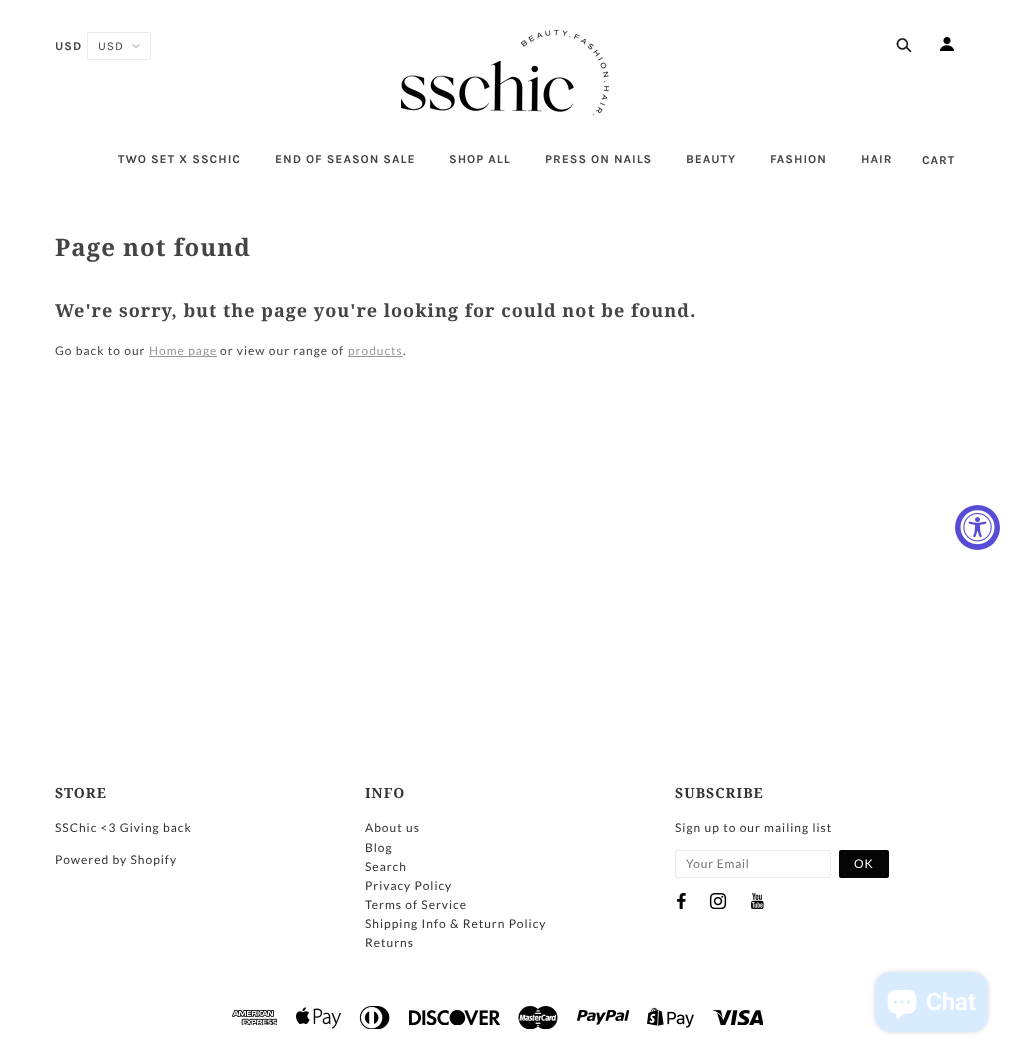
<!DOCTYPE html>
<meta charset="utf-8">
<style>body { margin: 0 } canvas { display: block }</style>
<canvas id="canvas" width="1010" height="1053"></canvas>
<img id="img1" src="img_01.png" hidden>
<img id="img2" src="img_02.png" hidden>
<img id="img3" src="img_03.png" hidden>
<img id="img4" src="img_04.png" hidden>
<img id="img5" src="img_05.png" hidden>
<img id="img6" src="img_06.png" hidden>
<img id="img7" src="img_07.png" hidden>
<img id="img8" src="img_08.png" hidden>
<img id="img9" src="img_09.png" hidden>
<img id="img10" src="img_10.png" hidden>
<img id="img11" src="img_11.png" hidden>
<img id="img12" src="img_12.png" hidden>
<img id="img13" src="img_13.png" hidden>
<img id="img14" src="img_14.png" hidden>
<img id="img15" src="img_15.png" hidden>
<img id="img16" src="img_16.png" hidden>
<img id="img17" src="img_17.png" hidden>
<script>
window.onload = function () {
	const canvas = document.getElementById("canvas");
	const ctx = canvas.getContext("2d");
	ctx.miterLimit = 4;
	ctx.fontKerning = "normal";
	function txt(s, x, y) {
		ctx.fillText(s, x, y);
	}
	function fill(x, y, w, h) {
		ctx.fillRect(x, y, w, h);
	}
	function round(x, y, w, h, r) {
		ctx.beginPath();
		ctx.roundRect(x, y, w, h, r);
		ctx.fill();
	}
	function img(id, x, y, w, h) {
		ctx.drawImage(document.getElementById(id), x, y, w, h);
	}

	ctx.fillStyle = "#FFFFFF";
	fill(0, 0, 1010, 1053);
	img("img1", 132, 44, 8, 4);
	ctx.beginPath();
	ctx.roundRect(87.5, 32.5, 63, 27, 1.5);
	ctx.strokeStyle = "#EBEBEB";
	ctx.stroke();
	img("img2", 401, 30, 208, 85);
	img("img3", 896, 38, 16, 14);
	img("img4", 939, 37, 16, 14);
	ctx.fillStyle = "#999999";
	fill(149, 356, 68, 1);
	fill(348, 356, 55, 1);
	ctx.beginPath();
	ctx.roundRect(675.5, 850.5, 155, 27, 1.5);
	ctx.stroke();
	ctx.fillStyle = "#050505";
	round(839, 850, 50, 28, 2);
	img("img5", 677, 893, 9, 16);
	img("img6", 709, 893, 18, 16);
	img("img7", 751, 893, 13, 16);
	img("img8", 232, 1010, 45, 15);
	img("img9", 296, 1007, 45, 22);
	img("img10", 359, 1006, 31, 23);
	img("img11", 409, 1010, 91, 15);
	img("img12", 518, 1006, 40, 23);
	img("img13", 577, 1010, 52, 15);
	img("img14", 647, 1007, 47, 21);
	img("img15", 713, 1010, 50, 15);
	ctx.fillStyle = "#574CD5";
	ctx.beginPath();
	ctx.arc(977.5, 527.5, 22.5, 0, Math.PI * 2);
	ctx.fill();
	img("img16", 960, 510, 35, 35);
	ctx.fillStyle = "rgba(0, 0, 0, 0.15)";
	ctx.filter = "blur(2.5px)";
	ctx.beginPath();
	ctx.roundRect(875, 972, 113, 60, 16);
	ctx.fill();
	ctx.filter = "none";
	ctx.fillStyle = "#D9ECFF";
	round(875, 972, 113, 60, 16);
	img("img17", 887, 990, 30, 29);
	ctx.letterSpacing = "1px";
	ctx.font = "bold 12px Karla";
	ctx.fillStyle = "#444444";
	txt("USD", 55, 50);
	ctx.font = "12px Karla";
	txt("USD", 98, 50);
	ctx.font = "bold 12px Karla";
	txt("TWO SET X SSCHIC", 118, 163);
	txt("END OF SEASON SALE", 275, 163);
	txt("SHOP ALL", 449, 163);
	txt("PRESS ON NAILS", 545, 163);
	txt("BEAUTY", 686, 163);
	txt("FASHION", 770, 163);
	txt("HAIR", 861, 163);
	txt("CART", 922, 164);
	ctx.font = "bold 24px Droid Serif";
	txt("Page not found", 55, 256);
	ctx.font = "bold 18px Droid Serif";
	txt("We're sorry, but the page you're looking for could not be found.", 55, 317);
	ctx.font = "12px Lato";
	txt("Go back to our", 55, 355);
	ctx.fillStyle = "#999999";
	txt("Home page", 149, 355);
	ctx.fillStyle = "#444444";
	txt("or view our range of", 220, 355);
	ctx.fillStyle = "#999999";
	txt("products", 348, 355);
	ctx.fillStyle = "#444444";
	txt(".", 403, 355);
	ctx.font = "bold 14px Droid Serif";
	ctx.fillStyle = "#333333";
	txt("STORE", 55, 798);
	ctx.font = "12px Lato";
	txt("SSChic <3 Giving back", 55, 832);
	txt("Powered by Shopify", 55, 864);
	ctx.font = "bold 14px Droid Serif";
	txt("INFO", 365, 798);
	ctx.font = "12px Lato";
	txt("About us", 365, 832);
	txt("Blog", 365, 852);
	txt("Search", 365, 871);
	txt("Privacy Policy", 365, 890);
	txt("Terms of Service", 365, 909);
	txt("Shipping Info & Return Policy", 365, 928);
	txt("Returns", 365, 947);
	ctx.font = "bold 14px Droid Serif";
	txt("SUBSCRIBE", 675, 798);
	ctx.font = "12px Lato";
	txt("Sign up to our mailing list", 675, 832);
	ctx.letterSpacing = "0.75px";
	ctx.fillStyle = "#757575";
	txt("Your Email", 686, 868);
	ctx.letterSpacing = "1px";
	ctx.fillStyle = "#FFFFFF";
	txt("OK", 854, 868);
	ctx.letterSpacing = "0px";
	ctx.font = "600 24px Roboto";
	txt("Chat", 926, 1010);
};
</script>
